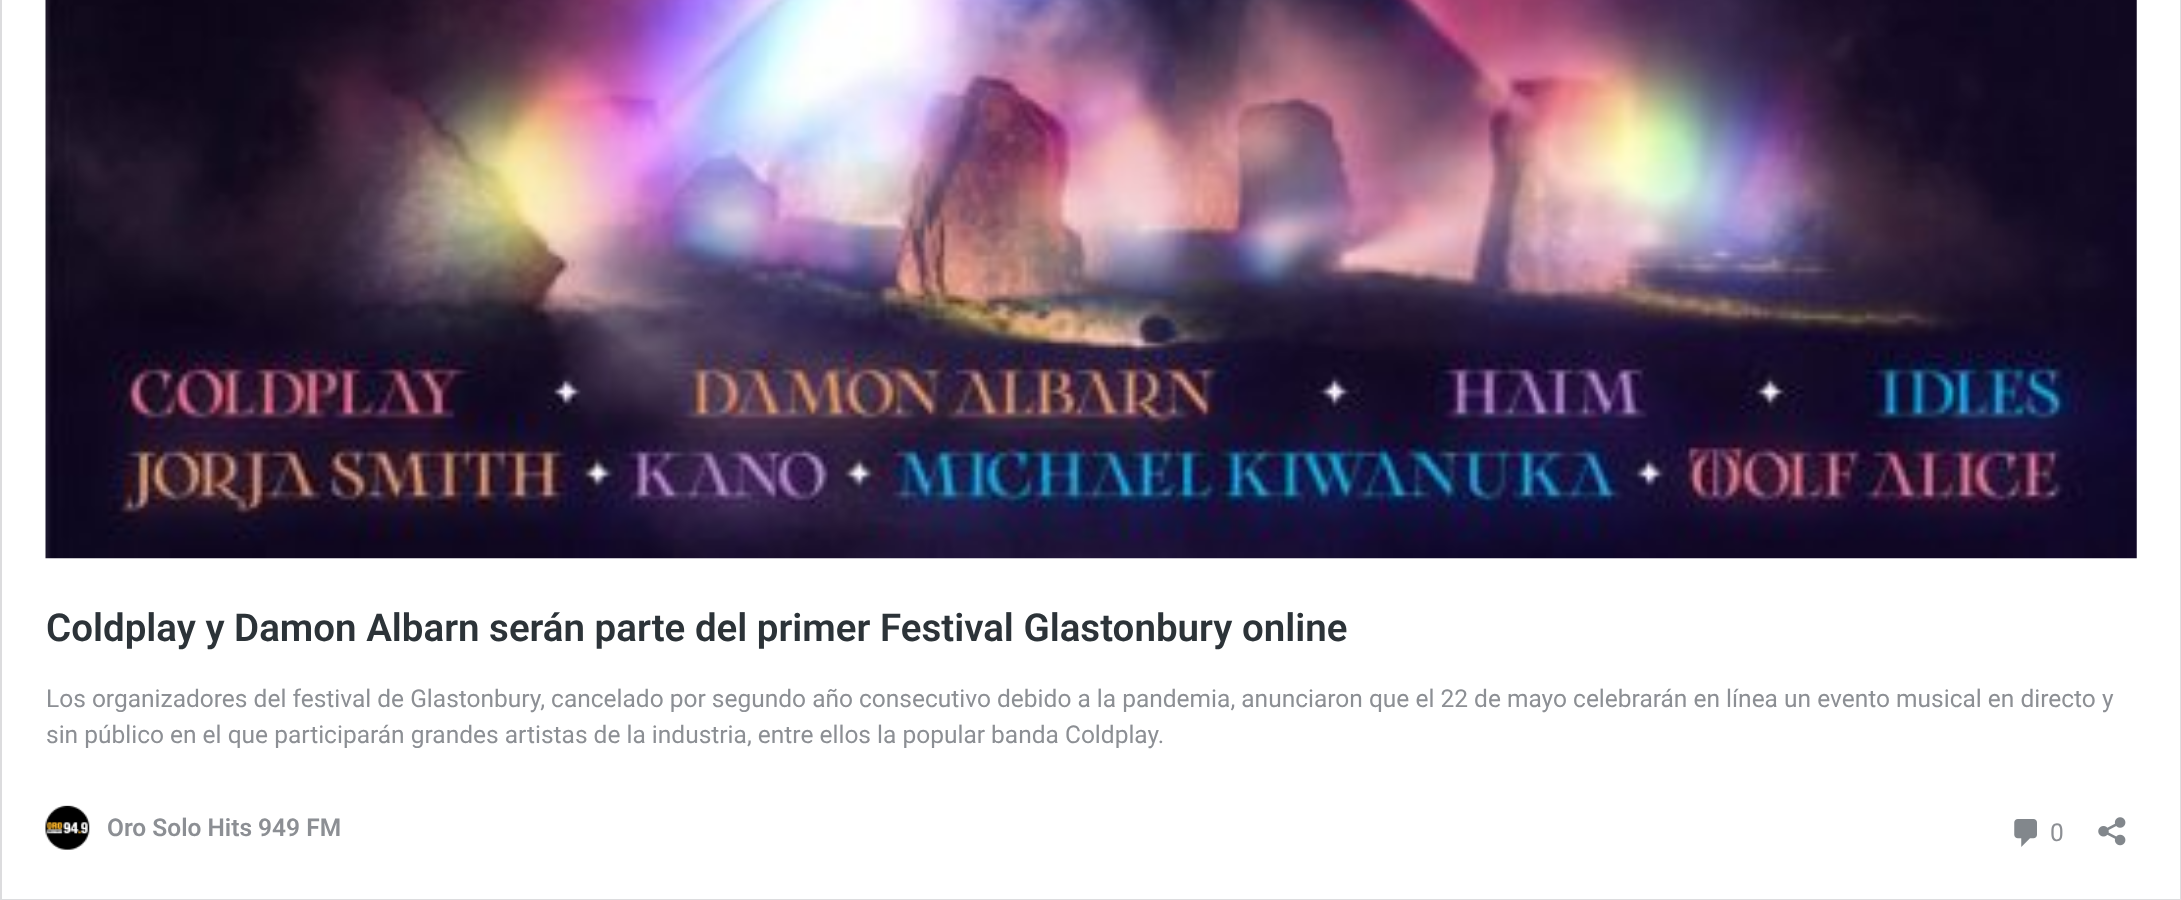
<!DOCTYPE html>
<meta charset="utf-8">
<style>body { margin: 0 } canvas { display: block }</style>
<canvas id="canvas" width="2181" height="900"></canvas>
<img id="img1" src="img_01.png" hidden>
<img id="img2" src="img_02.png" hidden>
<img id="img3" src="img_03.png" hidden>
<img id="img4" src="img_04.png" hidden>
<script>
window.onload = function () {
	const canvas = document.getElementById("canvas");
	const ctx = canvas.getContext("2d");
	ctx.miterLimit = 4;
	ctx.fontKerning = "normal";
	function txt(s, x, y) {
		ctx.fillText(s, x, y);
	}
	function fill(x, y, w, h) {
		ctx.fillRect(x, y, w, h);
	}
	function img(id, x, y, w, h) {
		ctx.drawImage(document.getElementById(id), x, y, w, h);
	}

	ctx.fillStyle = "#FFFFFF";
	fill(0, 0, 2181, 900);
	ctx.strokeStyle = "#DCDCDE";
	ctx.lineWidth = 2;
	ctx.strokeRect(1, -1, 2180, 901);
	img("img1", 45, 0, 2092, 559);
	img("img2", 45, 805, 45, 45);
	img("img3", 2014, 819, 23, 28);
	img("img4", 2098, 817, 28, 29);
	ctx.font = "600 38.5px Roboto";
	ctx.fillStyle = "#2C3338";
	txt("Coldplay y Damon Albarn serán parte del primer Festival Glastonbury online", 46, 641);
	ctx.font = "24.5px Roboto";
	ctx.fillStyle = "#8C8F94";
	txt("Los organizadores del festival de Glastonbury, cancelado por segundo año consecutivo debido a la pandemia, anunciaron que el 22 de mayo celebrarán en línea un evento musical en directo y", 46, 707);
	txt("sin público en el que participarán grandes artistas de la industria, entre ellos la popular banda Coldplay.", 46, 743);
	ctx.font = "600 24.5px Roboto";
	txt("Oro Solo Hits 949 FM", 107, 836);
	ctx.font = "24.5px Roboto";
	txt("0", 2050, 841);
};
</script>
